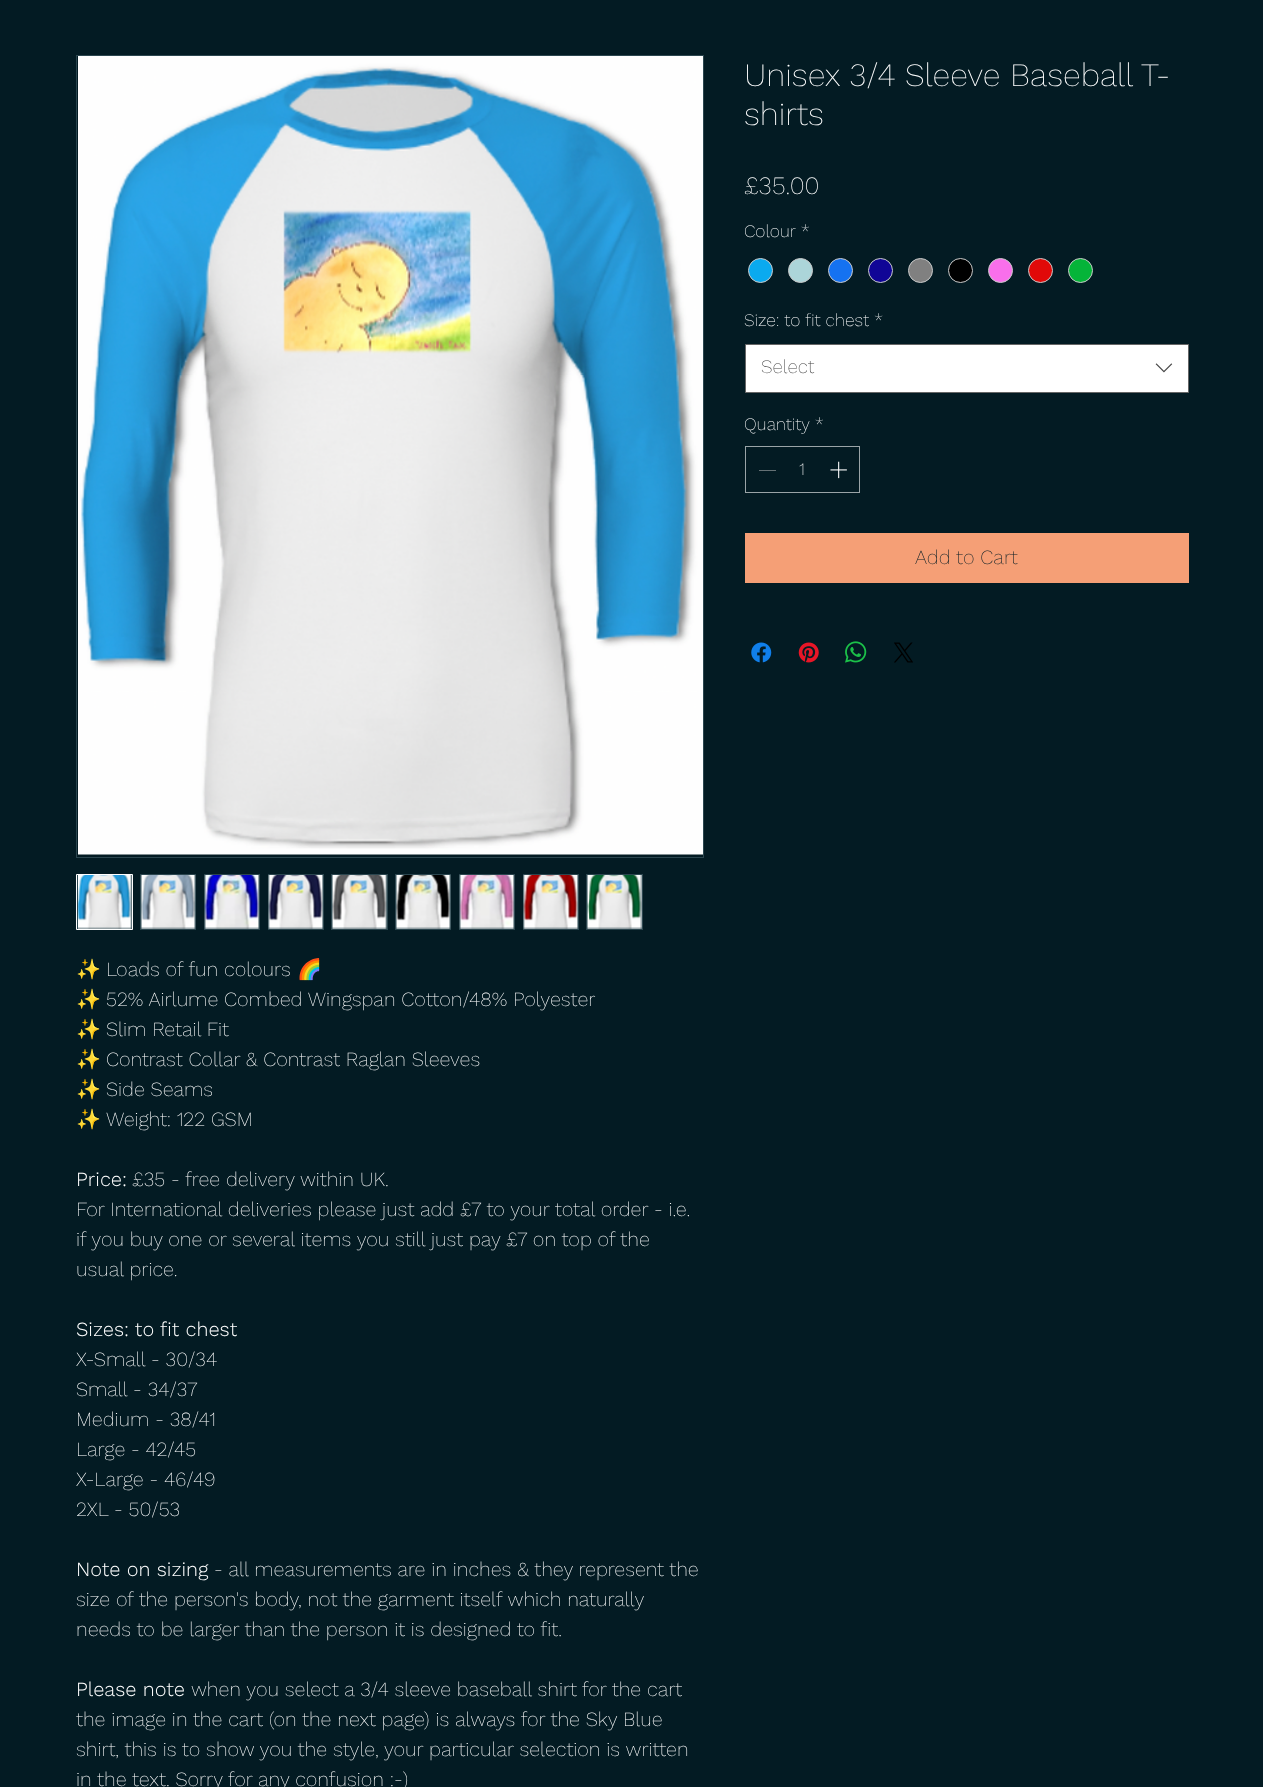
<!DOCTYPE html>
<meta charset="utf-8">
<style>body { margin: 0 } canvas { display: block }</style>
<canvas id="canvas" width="1263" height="1787"></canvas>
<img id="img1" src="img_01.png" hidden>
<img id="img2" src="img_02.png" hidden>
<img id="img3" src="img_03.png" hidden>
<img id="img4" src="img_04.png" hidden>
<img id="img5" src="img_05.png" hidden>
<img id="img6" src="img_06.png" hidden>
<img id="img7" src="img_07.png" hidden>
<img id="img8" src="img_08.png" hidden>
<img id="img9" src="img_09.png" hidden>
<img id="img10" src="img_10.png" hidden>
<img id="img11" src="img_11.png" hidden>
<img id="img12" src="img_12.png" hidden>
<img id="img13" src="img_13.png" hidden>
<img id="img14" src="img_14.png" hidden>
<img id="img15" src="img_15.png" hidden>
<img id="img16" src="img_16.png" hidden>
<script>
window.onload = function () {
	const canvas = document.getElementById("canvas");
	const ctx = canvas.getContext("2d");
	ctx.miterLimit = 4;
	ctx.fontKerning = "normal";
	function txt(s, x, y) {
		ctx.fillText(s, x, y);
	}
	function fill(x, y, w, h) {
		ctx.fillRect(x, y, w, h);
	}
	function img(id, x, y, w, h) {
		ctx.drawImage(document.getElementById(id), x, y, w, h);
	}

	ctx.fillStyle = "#031B23";
	fill(0, 0, 1263, 1787);
	ctx.fillStyle = "#0AAAEF";
	ctx.beginPath();
	ctx.arc(760.5, 270.5, 12, 0, Math.PI * 2);
	ctx.fill();
	ctx.strokeStyle = "#C9C9C9";
	ctx.stroke();
	ctx.fillStyle = "#ACD5D9";
	ctx.beginPath();
	ctx.arc(800.5, 270.5, 12, 0, Math.PI * 2);
	ctx.fill();
	ctx.stroke();
	ctx.fillStyle = "#1572F1";
	ctx.beginPath();
	ctx.arc(840.5, 270.5, 12, 0, Math.PI * 2);
	ctx.fill();
	ctx.stroke();
	ctx.fillStyle = "#100596";
	ctx.beginPath();
	ctx.arc(880.5, 270.5, 12, 0, Math.PI * 2);
	ctx.fill();
	ctx.stroke();
	ctx.fillStyle = "#808080";
	ctx.beginPath();
	ctx.arc(920.5, 270.5, 12, 0, Math.PI * 2);
	ctx.fill();
	ctx.stroke();
	ctx.fillStyle = "#000000";
	ctx.beginPath();
	ctx.arc(960.5, 270.5, 12, 0, Math.PI * 2);
	ctx.fill();
	ctx.stroke();
	ctx.fillStyle = "#F96FEB";
	ctx.beginPath();
	ctx.arc(1000.5, 270.5, 12, 0, Math.PI * 2);
	ctx.fill();
	ctx.stroke();
	ctx.fillStyle = "#E10909";
	ctx.beginPath();
	ctx.arc(1040.5, 270.5, 12, 0, Math.PI * 2);
	ctx.fill();
	ctx.stroke();
	ctx.fillStyle = "#05B439";
	ctx.beginPath();
	ctx.arc(1080.5, 270.5, 12, 0, Math.PI * 2);
	ctx.fill();
	ctx.stroke();
	ctx.fillStyle = "#FFFFFF";
	ctx.beginPath();
	ctx.rect(745.5, 344.5, 443, 48);
	ctx.fill();
	ctx.strokeStyle = "#666666";
	ctx.stroke();
	img("img1", 1155, 363, 18, 10);
	ctx.strokeStyle = "#9AA4A7";
	ctx.strokeRect(745.5, 446.5, 114, 46);
	ctx.fillStyle = "#657175";
	fill(759, 470, 17, 1);
	img("img2", 830, 461, 17, 18);
	ctx.fillStyle = "#F59F76";
	fill(745, 533, 444, 50);
	img("img3", 751, 642, 21, 21);
	img("img4", 798, 642, 21, 21);
	img("img5", 845, 641, 22, 22);
	img("img6", 894, 642, 19, 21);
	ctx.strokeStyle = "#2B464F";
	ctx.strokeRect(76.5, 55.5, 627, 802);
	img("img7", 78, 56, 625, 799);
	ctx.fillStyle = "#2B464F";
	ctx.beginPath();
	ctx.rect(76.5, 874.5, 56, 55);
	ctx.fill();
	ctx.strokeStyle = "#FFFFFF";
	ctx.stroke();
	img("img8", 78, 875, 54, 54);
	fill(140, 874, 56, 56);
	img("img9", 140, 875, 56, 54);
	fill(204, 874, 56, 56);
	img("img10", 204, 875, 56, 54);
	fill(268, 874, 56, 56);
	img("img11", 268, 875, 55, 54);
	fill(331, 874, 57, 56);
	img("img12", 332, 875, 55, 54);
	fill(395, 874, 56, 56);
	img("img13", 395, 875, 56, 54);
	fill(459, 874, 56, 56);
	img("img14", 459, 875, 56, 54);
	fill(523, 874, 56, 56);
	img("img15", 523, 875, 55, 54);
	fill(586, 874, 57, 56);
	img("img16", 587, 875, 55, 54);
	ctx.font = "200 32.5px Work Sans";
	ctx.fillStyle = "#FFFFFF";
	txt("Unisex 3/4 Sleeve Baseball T-", 744, 86);
	txt("shirts", 744, 125);
	ctx.font = "200 25px Work Sans";
	txt("£35.00", 744, 194);
	ctx.font = "200 17.5px Work Sans";
	txt("Colour *", 744, 237);
	txt("Size: to fit chest *", 744, 326);
	ctx.font = "200 19px Work Sans";
	ctx.fillStyle = "#444444";
	txt("Select", 761, 373);
	ctx.font = "200 17.5px Work Sans";
	ctx.fillStyle = "#FFFFFF";
	txt("Quantity *", 744, 430);
	txt("1", 799, 475);
	ctx.font = "200 20px Work Sans";
	ctx.fillStyle = "#031B23";
	txt("Add to Cart", 915, 564);
	ctx.save();
	ctx.beginPath();
	ctx.rect(76, 955, 625, 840);
	ctx.clip();
	ctx.font = "20px Noto Color Emoji";
	ctx.fillStyle = "#FFFFFF";
	txt("✨", 76, 976);
	ctx.restore();
	ctx.fillStyle = "#FFFFFF";
	txt("Loads of fun colours", 106, 976);
	ctx.font = "20px Noto Color Emoji";
	txt("🌈", 297, 976);
	ctx.save();
	ctx.beginPath();
	ctx.rect(76, 955, 625, 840);
	ctx.clip();
	txt("✨", 76, 1006);
	ctx.restore();
	ctx.font = "200 20px Work Sans";
	txt("52% Airlume Combed Wingspan Cotton/48% Polyester", 106, 1006);
	ctx.save();
	ctx.beginPath();
	ctx.rect(76, 955, 625, 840);
	ctx.clip();
	ctx.font = "20px Noto Color Emoji";
	txt("✨", 76, 1036);
	ctx.restore();
	txt("Slim Retail Fit", 106, 1036);
	ctx.save();
	ctx.beginPath();
	ctx.rect(76, 955, 625, 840);
	ctx.clip();
	ctx.font = "20px Noto Color Emoji";
	txt("✨", 76, 1066);
	ctx.restore();
	txt("Contrast Collar & Contrast Raglan Sleeves", 106, 1066);
	ctx.save();
	ctx.beginPath();
	ctx.rect(76, 955, 625, 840);
	ctx.clip();
	ctx.font = "20px Noto Color Emoji";
	txt("✨", 76, 1096);
	ctx.restore();
	txt("Side Seams", 106, 1096);
	ctx.save();
	ctx.beginPath();
	ctx.rect(76, 955, 625, 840);
	ctx.clip();
	ctx.font = "20px Noto Color Emoji";
	txt("✨", 76, 1126);
	ctx.restore();
	txt("Weight: 122 GSM", 106, 1126);
	ctx.font = "300 20px Work Sans";
	txt("Price:", 76, 1186);
	ctx.font = "200 20px Work Sans";
	txt("£35 - free delivery within UK.", 132, 1186);
	txt("For International deliveries please just add £7 to your total order - i.e.", 76, 1216);
	txt("if you buy one or several items you still just pay £7 on top of the", 76, 1246);
	txt("usual price.", 76, 1276);
	ctx.font = "300 20px Work Sans";
	txt("Sizes: to fit chest", 76, 1336);
	ctx.font = "200 20px Work Sans";
	txt("X-Small - 30/34", 76, 1366);
	txt("Small - 34/37", 76, 1396);
	txt("Medium - 38/41", 76, 1426);
	txt("Large - 42/45", 76, 1456);
	txt("X-Large - 46/49", 76, 1486);
	txt("2XL - 50/53", 76, 1516);
	ctx.font = "300 20px Work Sans";
	txt("Note on sizing", 76, 1576);
	ctx.font = "200 20px Work Sans";
	txt("- all measurements are in inches & they represent the", 214, 1576);
	txt("size of the person's body, not the garment itself which naturally", 76, 1606);
	txt("needs to be larger than the person it is designed to fit.", 76, 1636);
	ctx.font = "300 20px Work Sans";
	txt("Please note", 76, 1696);
	ctx.font = "200 20px Work Sans";
	txt("when you select a 3/4 sleeve baseball shirt for the cart", 191, 1696);
	txt("the image in the cart (on the next page) is always for the Sky Blue", 76, 1726);
	txt("shirt, this is to show you the style, your particular selection is written", 76, 1756);
	txt("in the text. Sorry for any confusion :-)", 76, 1786);
};
</script>
